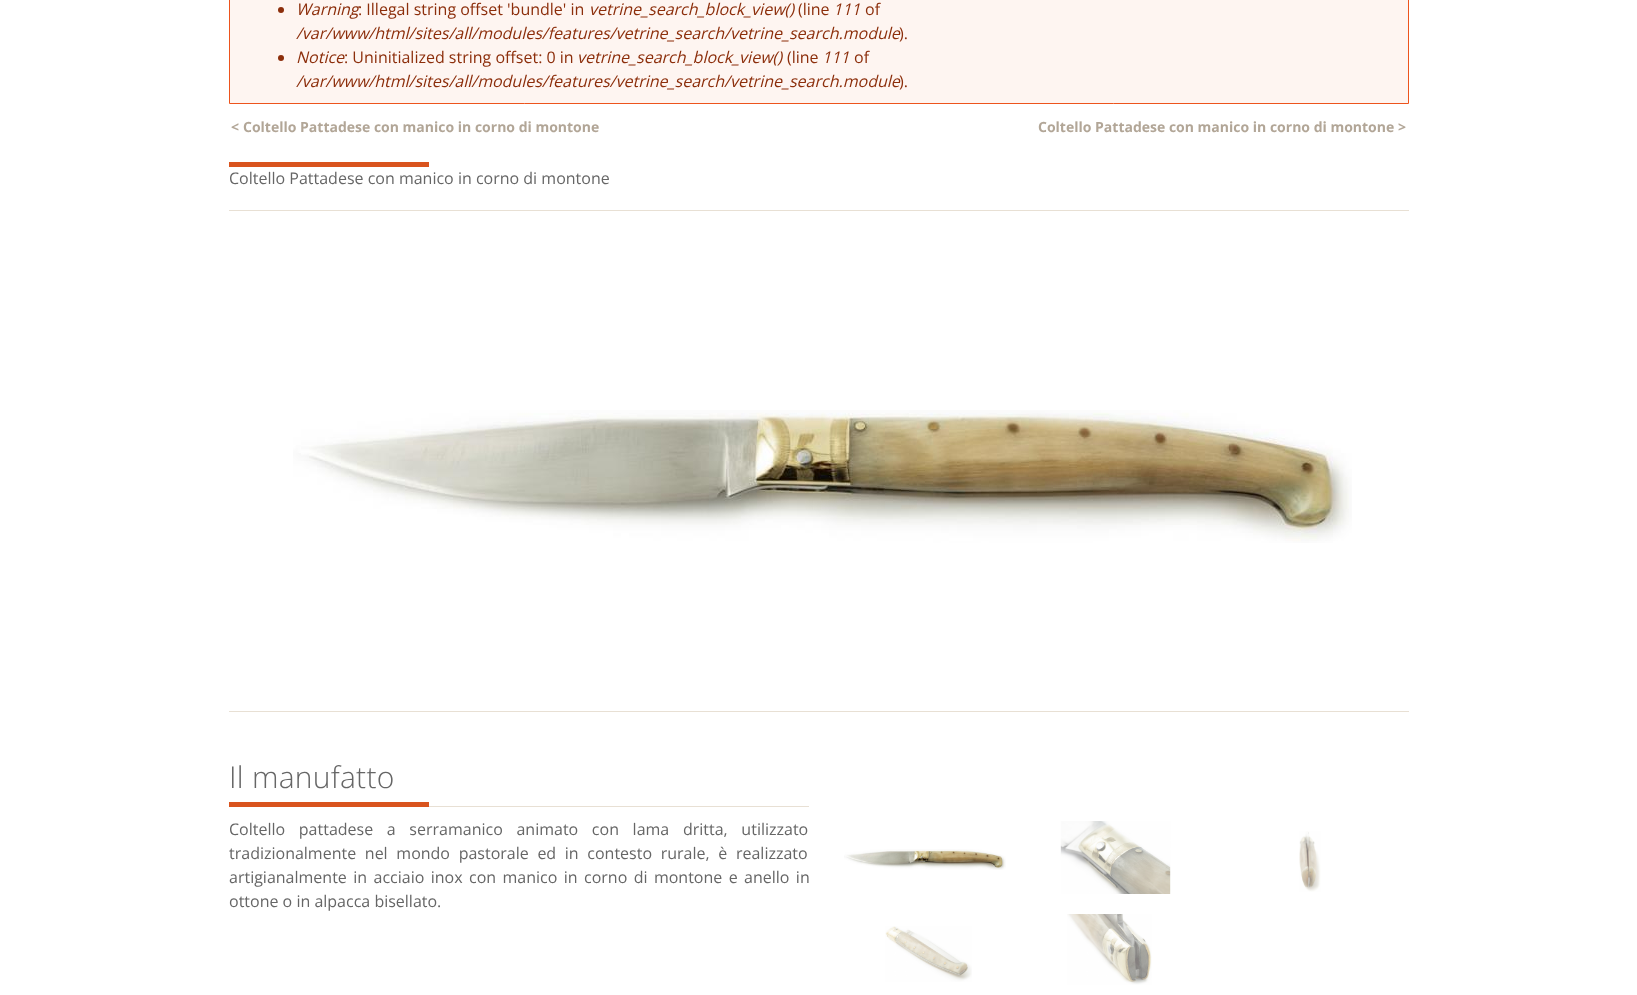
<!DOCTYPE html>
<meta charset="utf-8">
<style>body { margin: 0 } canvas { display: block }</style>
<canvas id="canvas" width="1637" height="995"></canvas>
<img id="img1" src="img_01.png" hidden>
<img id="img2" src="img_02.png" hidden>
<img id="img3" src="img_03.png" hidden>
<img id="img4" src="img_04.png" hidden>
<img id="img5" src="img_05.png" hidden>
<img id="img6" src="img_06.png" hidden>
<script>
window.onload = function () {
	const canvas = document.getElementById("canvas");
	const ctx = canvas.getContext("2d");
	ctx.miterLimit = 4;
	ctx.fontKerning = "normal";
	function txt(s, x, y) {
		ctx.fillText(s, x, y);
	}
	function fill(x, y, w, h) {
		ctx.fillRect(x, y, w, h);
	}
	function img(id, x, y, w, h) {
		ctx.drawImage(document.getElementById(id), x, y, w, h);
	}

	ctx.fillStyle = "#FFFFFF";
	fill(0, 0, 1637, 995);
	ctx.fillStyle = "#FEF5F1";
	ctx.beginPath();
	ctx.rect(229.5, -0.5, 1179, 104);
	ctx.fill();
	ctx.strokeStyle = "#ED541D";
	ctx.stroke();
	ctx.fillStyle = "#8C2E0B";
	ctx.beginPath();
	ctx.arc(281, 10, 3, 0, Math.PI * 2);
	ctx.fill();
	ctx.beginPath();
	ctx.arc(281, 58, 3, 0, Math.PI * 2);
	ctx.fill();
	ctx.fillStyle = "#D9541E";
	fill(229, 162, 200, 5);
	ctx.fillStyle = "#E8E0D4";
	fill(229, 210, 1180, 1);
	fill(229, 711, 1180, 1);
	img("img1", 293, 410, 1059, 133);
	ctx.fillStyle = "#D9541E";
	fill(229, 802, 200, 5);
	ctx.fillStyle = "#E8E0D4";
	fill(429, 806, 380, 1);
	img("img2", 844, 849, 162, 21);
	img("img3", 1060, 821, 111, 73);
	img("img4", 1299, 831, 22, 61);
	img("img5", 885, 926, 87, 56);
	img("img6", 1067, 914, 85, 71);
	ctx.font = "italic 16px Open Sans";
	ctx.fillStyle = "#8C2E0B";
	txt("Warning", 296, 15);
	ctx.font = "16px Open Sans";
	txt(": Illegal string offset 'bundle' in", 358, 15);
	ctx.font = "italic 16px Open Sans";
	txt("vetrine_search_block_view()", 589, 15);
	ctx.font = "16px Open Sans";
	txt("(line", 798, 15);
	ctx.font = "italic 16px Open Sans";
	txt("111", 833, 15);
	ctx.font = "16px Open Sans";
	txt("of", 865, 15);
	ctx.font = "italic 16px Open Sans";
	txt("/var/www/html/sites/all/modules/features/vetrine_search/vetrine_search.module", 296, 39);
	ctx.font = "16px Open Sans";
	txt(").", 899, 39);
	ctx.font = "italic 16px Open Sans";
	txt("Notice", 296, 63);
	ctx.font = "16px Open Sans";
	txt(": Uninitialized string offset: 0 in", 344, 63);
	ctx.font = "italic 16px Open Sans";
	txt("vetrine_search_block_view()", 577, 63);
	ctx.font = "16px Open Sans";
	txt("(line", 787, 63);
	ctx.font = "italic 16px Open Sans";
	txt("111", 822, 63);
	ctx.font = "16px Open Sans";
	txt("of", 854, 63);
	ctx.font = "italic 16px Open Sans";
	txt("/var/www/html/sites/all/modules/features/vetrine_search/vetrine_search.module", 296, 87);
	ctx.font = "16px Open Sans";
	txt(").", 899, 87);
	ctx.font = "bold 14px Open Sans";
	ctx.fillStyle = "#B2A697";
	txt("<", 231, 132);
	txt("Coltello Pattadese con manico in corno di montone", 243, 132);
	txt("Coltello Pattadese con manico in corno di montone", 1038, 132);
	txt(">", 1398, 132);
	ctx.font = "16px Open Sans";
	ctx.fillStyle = "#666666";
	txt("Coltello Pattadese con manico in corno di montone", 229, 184);
	ctx.letterSpacing = "0.25px";
	ctx.font = "300 30px Open Sans";
	txt("Il manufatto", 229, 788);
	ctx.letterSpacing = "0px";
	ctx.wordSpacing = "9.5px";
	ctx.font = "16px Open Sans";
	txt("Coltello pattadese a serramanico animato con lama dritta, utilizzato", 229, 835);
	ctx.wordSpacing = "4.5px";
	txt("tradizionalmente nel mondo pastorale ed in contesto rurale, è realizzato", 229, 859);
	ctx.wordSpacing = "2.25px";
	txt("artigianalmente in acciaio inox con manico in corno di montone e anello in", 229, 883);
	ctx.wordSpacing = "0px";
	txt("ottone o in alpacca bisellato.", 229, 907);
};
</script>
